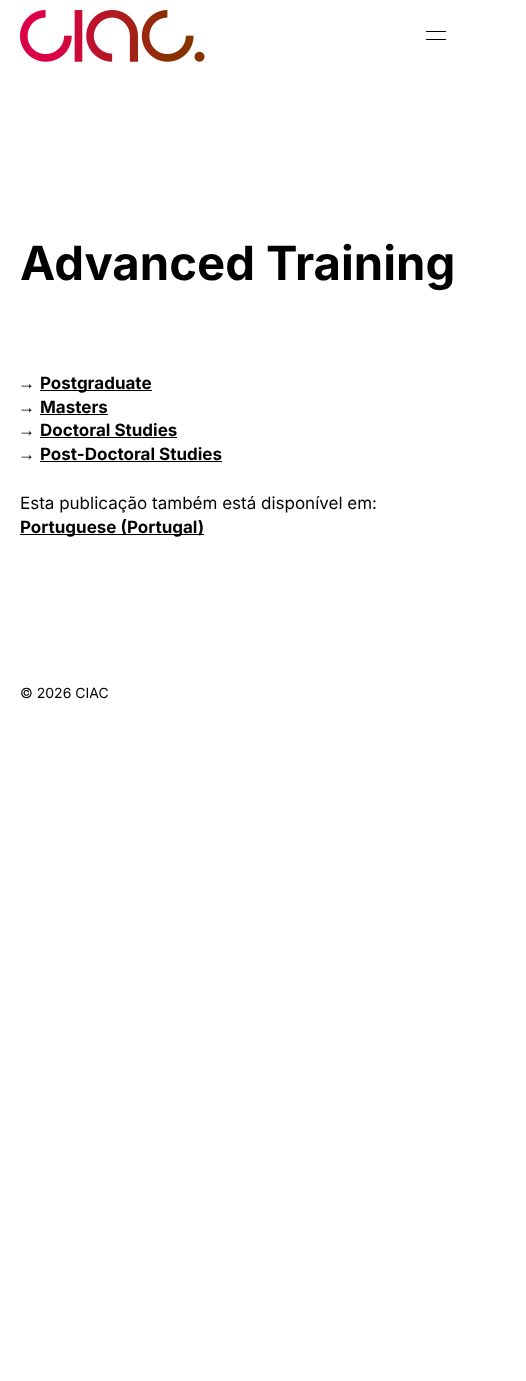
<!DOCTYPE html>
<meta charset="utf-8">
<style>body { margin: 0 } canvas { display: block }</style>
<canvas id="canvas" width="526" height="1381"></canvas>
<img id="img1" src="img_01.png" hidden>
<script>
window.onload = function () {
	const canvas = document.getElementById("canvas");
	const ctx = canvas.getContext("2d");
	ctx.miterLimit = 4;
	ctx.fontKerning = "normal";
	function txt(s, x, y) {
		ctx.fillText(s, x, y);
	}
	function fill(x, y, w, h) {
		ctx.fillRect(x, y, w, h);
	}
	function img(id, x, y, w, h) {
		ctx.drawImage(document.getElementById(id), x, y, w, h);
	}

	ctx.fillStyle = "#FFFFFF";
	fill(0, 0, 526, 1381);
	img("img1", 20, 10, 185, 52);
	ctx.fillStyle = "#000000";
	fill(426, 31, 20, 1);
	fill(426, 39, 20, 1);
	fill(40, 390, 112, 1);
	fill(40, 414, 68, 1);
	fill(40, 437, 137, 1);
	fill(40, 461, 182, 1);
	fill(20, 534, 184, 1);
	ctx.font = "bold 47.25px Inter";
	txt("Advanced Training", 20, 280);
	ctx.font = "bold 17px Liberation Serif";
	txt("→", 18, 389);
	ctx.font = "bold 17px Inter";
	txt("Postgraduate", 40, 389);
	ctx.font = "bold 17px Liberation Serif";
	txt("→", 18, 413);
	ctx.font = "bold 17px Inter";
	txt("Masters", 40, 413);
	ctx.font = "bold 17px Liberation Serif";
	txt("→", 18, 436);
	ctx.font = "bold 17px Inter";
	txt("Doctoral Studies", 40, 436);
	ctx.font = "bold 17px Liberation Serif";
	txt("→", 18, 460);
	ctx.font = "bold 17px Inter";
	txt("Post-Doctoral Studies", 40, 460);
	ctx.font = "17px Inter";
	txt("Esta publicação também está disponível em:", 20, 509);
	ctx.font = "bold 17px Inter";
	txt("Portuguese (Portugal)", 20, 533);
	ctx.font = "14px Inter";
	txt("© 2026 CIAC", 20, 698);
};
</script>
